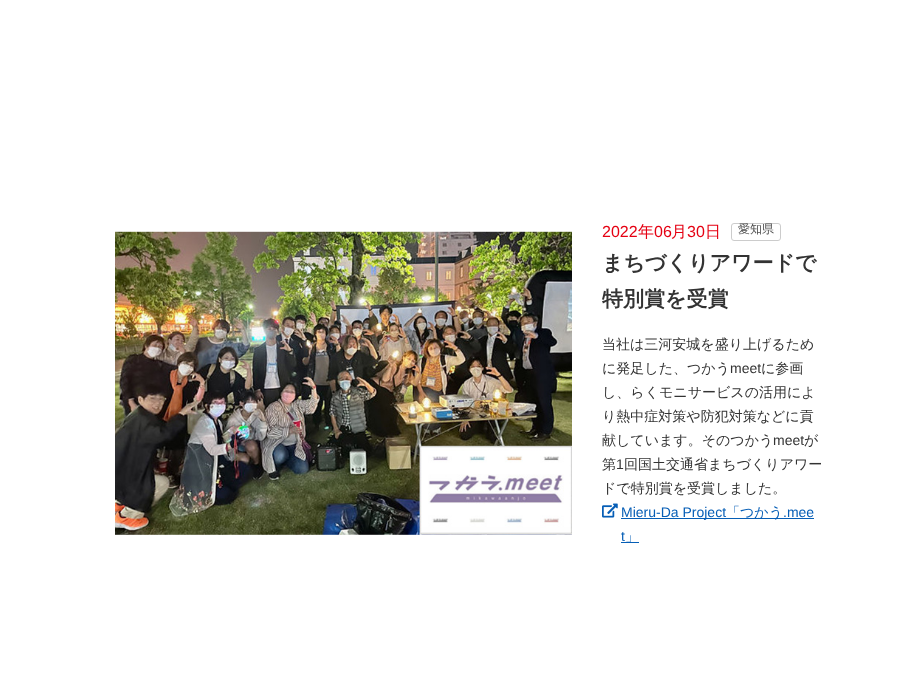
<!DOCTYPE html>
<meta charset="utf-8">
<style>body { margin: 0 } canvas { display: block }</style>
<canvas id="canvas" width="923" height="697"></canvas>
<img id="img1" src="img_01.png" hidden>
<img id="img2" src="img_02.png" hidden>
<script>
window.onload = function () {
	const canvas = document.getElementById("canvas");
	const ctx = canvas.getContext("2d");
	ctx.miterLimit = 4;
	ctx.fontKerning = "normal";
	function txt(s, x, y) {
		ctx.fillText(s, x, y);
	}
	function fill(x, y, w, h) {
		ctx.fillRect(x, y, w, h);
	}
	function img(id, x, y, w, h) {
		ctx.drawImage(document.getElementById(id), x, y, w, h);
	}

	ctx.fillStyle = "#FFFFFF";
	fill(0, 0, 923, 697);
	img("img1", 115, 231, 457, 304);
	ctx.beginPath();
	ctx.roundRect(731.5, 223.5, 49, 17, 2.5);
	ctx.strokeStyle = "#CCCCCC";
	ctx.stroke();
	img("img2", 602, 503, 16, 15);
	ctx.fillStyle = "#065EB6";
	fill(621, 518, 193, 1);
	fill(621, 542, 18, 1);
	ctx.font = "16px Liberation Sans";
	ctx.fillStyle = "#E50012";
	txt("2022", 602, 237);
	ctx.font = "500 16px WenQuanYi Zen Hei";
	txt("年", 638, 237);
	ctx.font = "16px Liberation Sans";
	txt("06", 654, 237);
	ctx.font = "500 16px WenQuanYi Zen Hei";
	txt("月", 671, 237);
	ctx.font = "16px Liberation Sans";
	txt("30", 687, 237);
	ctx.font = "500 16px WenQuanYi Zen Hei";
	txt("日", 705, 237);
	ctx.font = "500 12px WenQuanYi Zen Hei";
	ctx.fillStyle = "#4C4C4C";
	txt("愛知県", 738, 233);
	ctx.font = "bold 21px WenQuanYi Zen Hei";
	ctx.fillStyle = "#333333";
	txt("まちづくりアワードで", 602, 270);
	txt("特別賞を受賞", 602, 306);
	ctx.font = "500 14px WenQuanYi Zen Hei";
	txt("当社は三河安城を盛り上げるため", 602, 349);
	txt("に発足した、つかう", 602, 373);
	ctx.font = "14px Liberation Sans";
	txt("meet", 730, 373);
	ctx.font = "500 14px WenQuanYi Zen Hei";
	txt("に参画", 761, 373);
	txt("し、らくモニサービスの活用によ", 602, 397);
	txt("り熱中症対策や防犯対策などに貢", 602, 421);
	txt("献しています。そのつかう", 602, 445);
	ctx.font = "14px Liberation Sans";
	txt("meet", 773, 445);
	ctx.font = "500 14px WenQuanYi Zen Hei";
	txt("が", 804, 445);
	txt("第", 602, 469);
	ctx.font = "14px Liberation Sans";
	txt("1", 616, 469);
	ctx.font = "500 14px WenQuanYi Zen Hei";
	txt("回国土交通省まちづくりアワー", 624, 469);
	txt("ドで特別賞を受賞しました。", 602, 493);
	ctx.font = "14px Liberation Sans";
	ctx.fillStyle = "#065EB6";
	txt("Mieru-Da Project", 621, 517);
	ctx.font = "500 14px WenQuanYi Zen Hei";
	txt("「つかう", 726, 517);
	ctx.font = "14px Liberation Sans";
	txt(".mee", 783, 517);
	txt("t", 621, 541);
	ctx.font = "500 14px WenQuanYi Zen Hei";
	txt("」", 625, 541);
};
</script>
